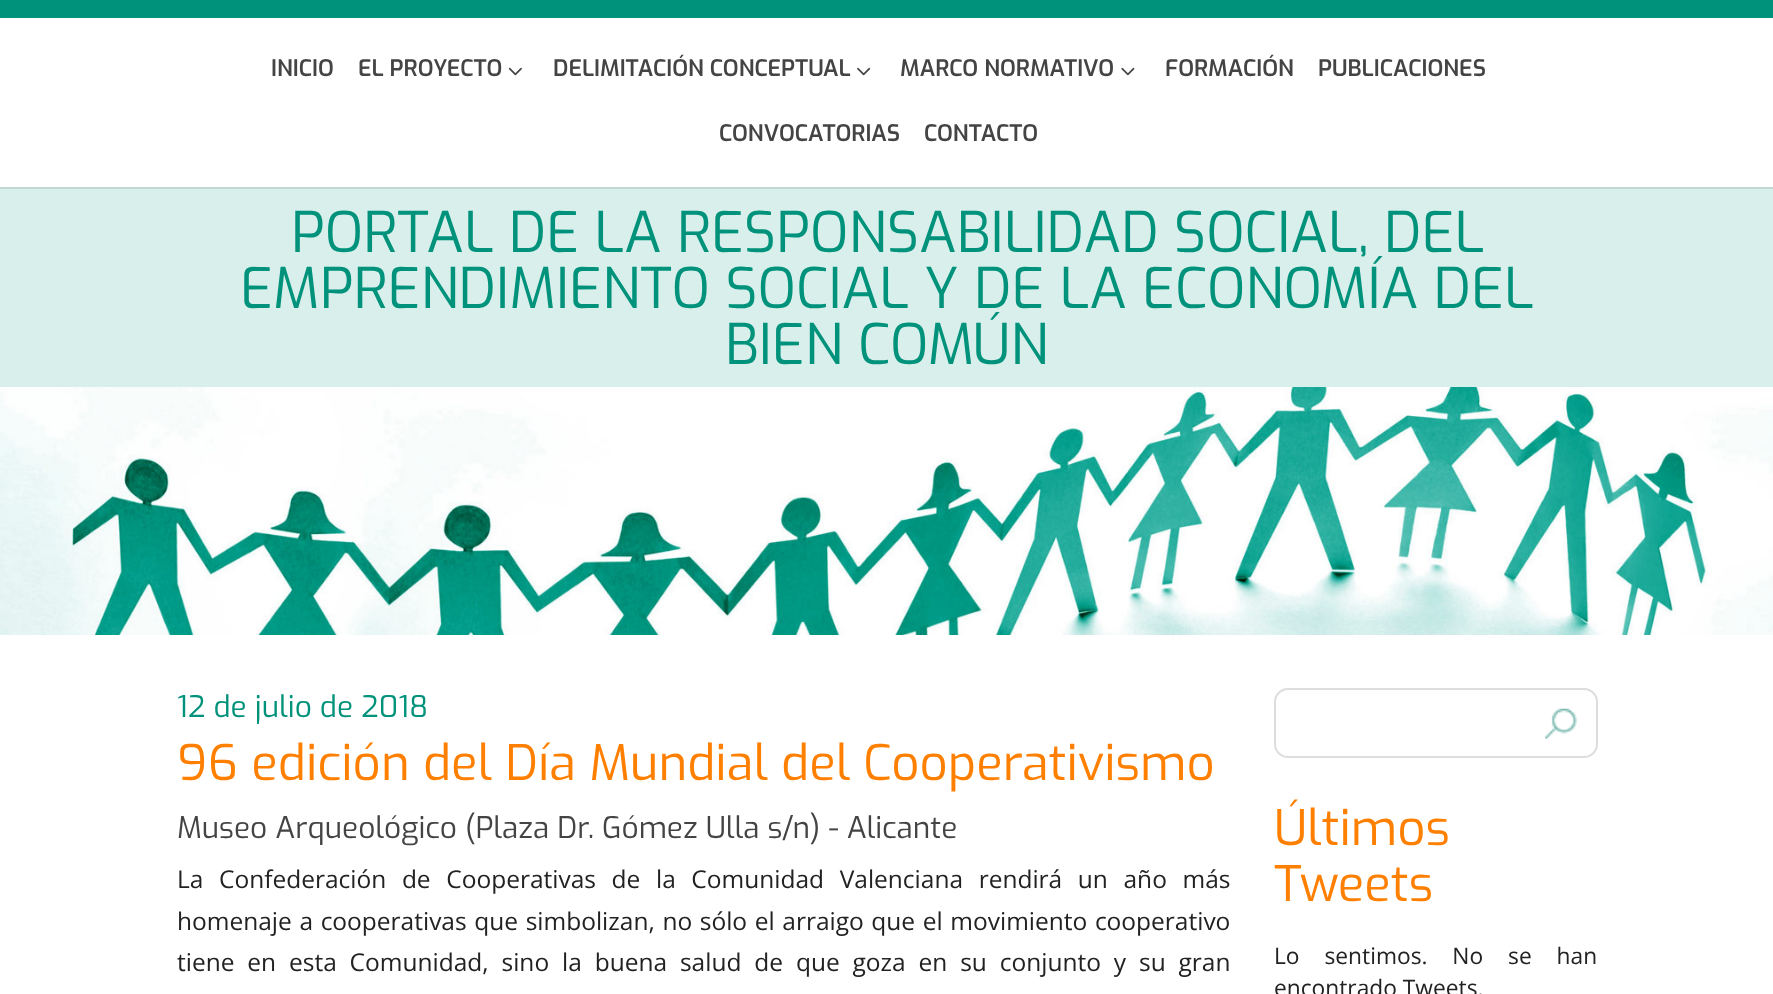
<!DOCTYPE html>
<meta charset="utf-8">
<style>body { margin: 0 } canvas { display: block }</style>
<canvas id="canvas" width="1773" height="994"></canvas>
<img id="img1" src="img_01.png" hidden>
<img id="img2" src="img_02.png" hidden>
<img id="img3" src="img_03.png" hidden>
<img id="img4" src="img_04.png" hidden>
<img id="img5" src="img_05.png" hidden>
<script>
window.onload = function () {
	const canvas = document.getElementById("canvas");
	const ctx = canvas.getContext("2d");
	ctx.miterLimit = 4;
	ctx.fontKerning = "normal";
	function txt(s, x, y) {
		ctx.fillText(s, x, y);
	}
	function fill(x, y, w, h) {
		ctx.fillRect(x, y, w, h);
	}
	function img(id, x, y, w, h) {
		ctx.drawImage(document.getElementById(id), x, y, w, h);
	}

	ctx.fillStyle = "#FFFFFF";
	fill(0, 0, 1773, 994);
	ctx.fillStyle = "#C3D7D4";
	ctx.beginPath();
	ctx.moveTo(0, 187);
	ctx.lineTo(0, 189);
	ctx.lineTo(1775, 189);
	ctx.lineTo(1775, 2);
	ctx.lineTo(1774, 2);
	ctx.lineTo(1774, 187);
	ctx.closePath();
	ctx.fill();
	ctx.fillStyle = "#00927B";
	fill(0, 0, 1773, 18);
	img("img1", 508, 67, 14, 9);
	img("img2", 857, 67, 14, 9);
	img("img3", 1121, 67, 14, 9);
	ctx.fillStyle = "#D9EFEB";
	fill(0, 189, 1773, 198);
	img("img4", 0, 387, 1773, 248);
	ctx.beginPath();
	ctx.roundRect(1275, 689, 322, 68, 13);
	ctx.strokeStyle = "#DDDDDD";
	ctx.lineWidth = 2;
	ctx.stroke();
	img("img5", 1545, 708, 32, 31);
	ctx.font = "600 22.75px Exo";
	ctx.fillStyle = "#444444";
	txt("INICIO", 271, 76);
	txt("EL PROYECTO", 358, 76);
	txt("DELIMITACIÓN CONCEPTUAL", 553, 76);
	txt("MARCO NORMATIVO", 900, 76);
	txt("FORMACIÓN", 1165, 76);
	txt("PUBLICACIONES", 1318, 76);
	txt("CONVOCATORIAS", 719, 141);
	txt("CONTACTO", 924, 141);
	ctx.font = "56px Exo";
	ctx.fillStyle = "#00927B";
	txt("PORTAL DE LA RESPONSABILIDAD SOCIAL, DEL", 291, 252);
	txt("EMPRENDIMIENTO SOCIAL Y DE LA ECONOMÍA DEL", 240, 308);
	txt("BIEN COMÚN", 725, 364);
	ctx.font = "29.75px Exo";
	txt("12 de julio de 2018", 177, 717);
	ctx.font = "49px Exo";
	ctx.fillStyle = "#FF7F00";
	txt("96 edición del Día Mundial del Cooperativismo", 177, 780);
	ctx.font = "29.75px Exo";
	ctx.fillStyle = "#444444";
	txt("Museo Arqueológico (Plaza Dr. Gómez Ulla s/n) - Alicante", 177, 838);
	ctx.wordSpacing = "9.25px";
	ctx.font = "24.5px Open Sans";
	ctx.fillStyle = "#222222";
	txt("La Confederación de Cooperativas de la Comunidad Valenciana rendirá un año más", 177, 888);
	ctx.wordSpacing = "1.25px";
	txt("homenaje a cooperativas que simbolizan, no sólo el arraigo que el movimiento cooperativo", 177, 930);
	ctx.wordSpacing = "6.5px";
	txt("tiene en esta Comunidad, sino la buena salud de que goza en su conjunto y su gran", 177, 971);
	ctx.wordSpacing = "0px";
	ctx.font = "49px Exo";
	ctx.fillStyle = "#FF7F00";
	txt("Últimos", 1274, 845);
	txt("Tweets", 1274, 901);
	ctx.wordSpacing = "19px";
	ctx.font = "22.75px Open Sans";
	ctx.fillStyle = "#222222";
	txt("Lo sentimos. No se han", 1274, 964);
	ctx.wordSpacing = "0px";
	txt("encontrado Tweets.", 1274, 996);
};
</script>
